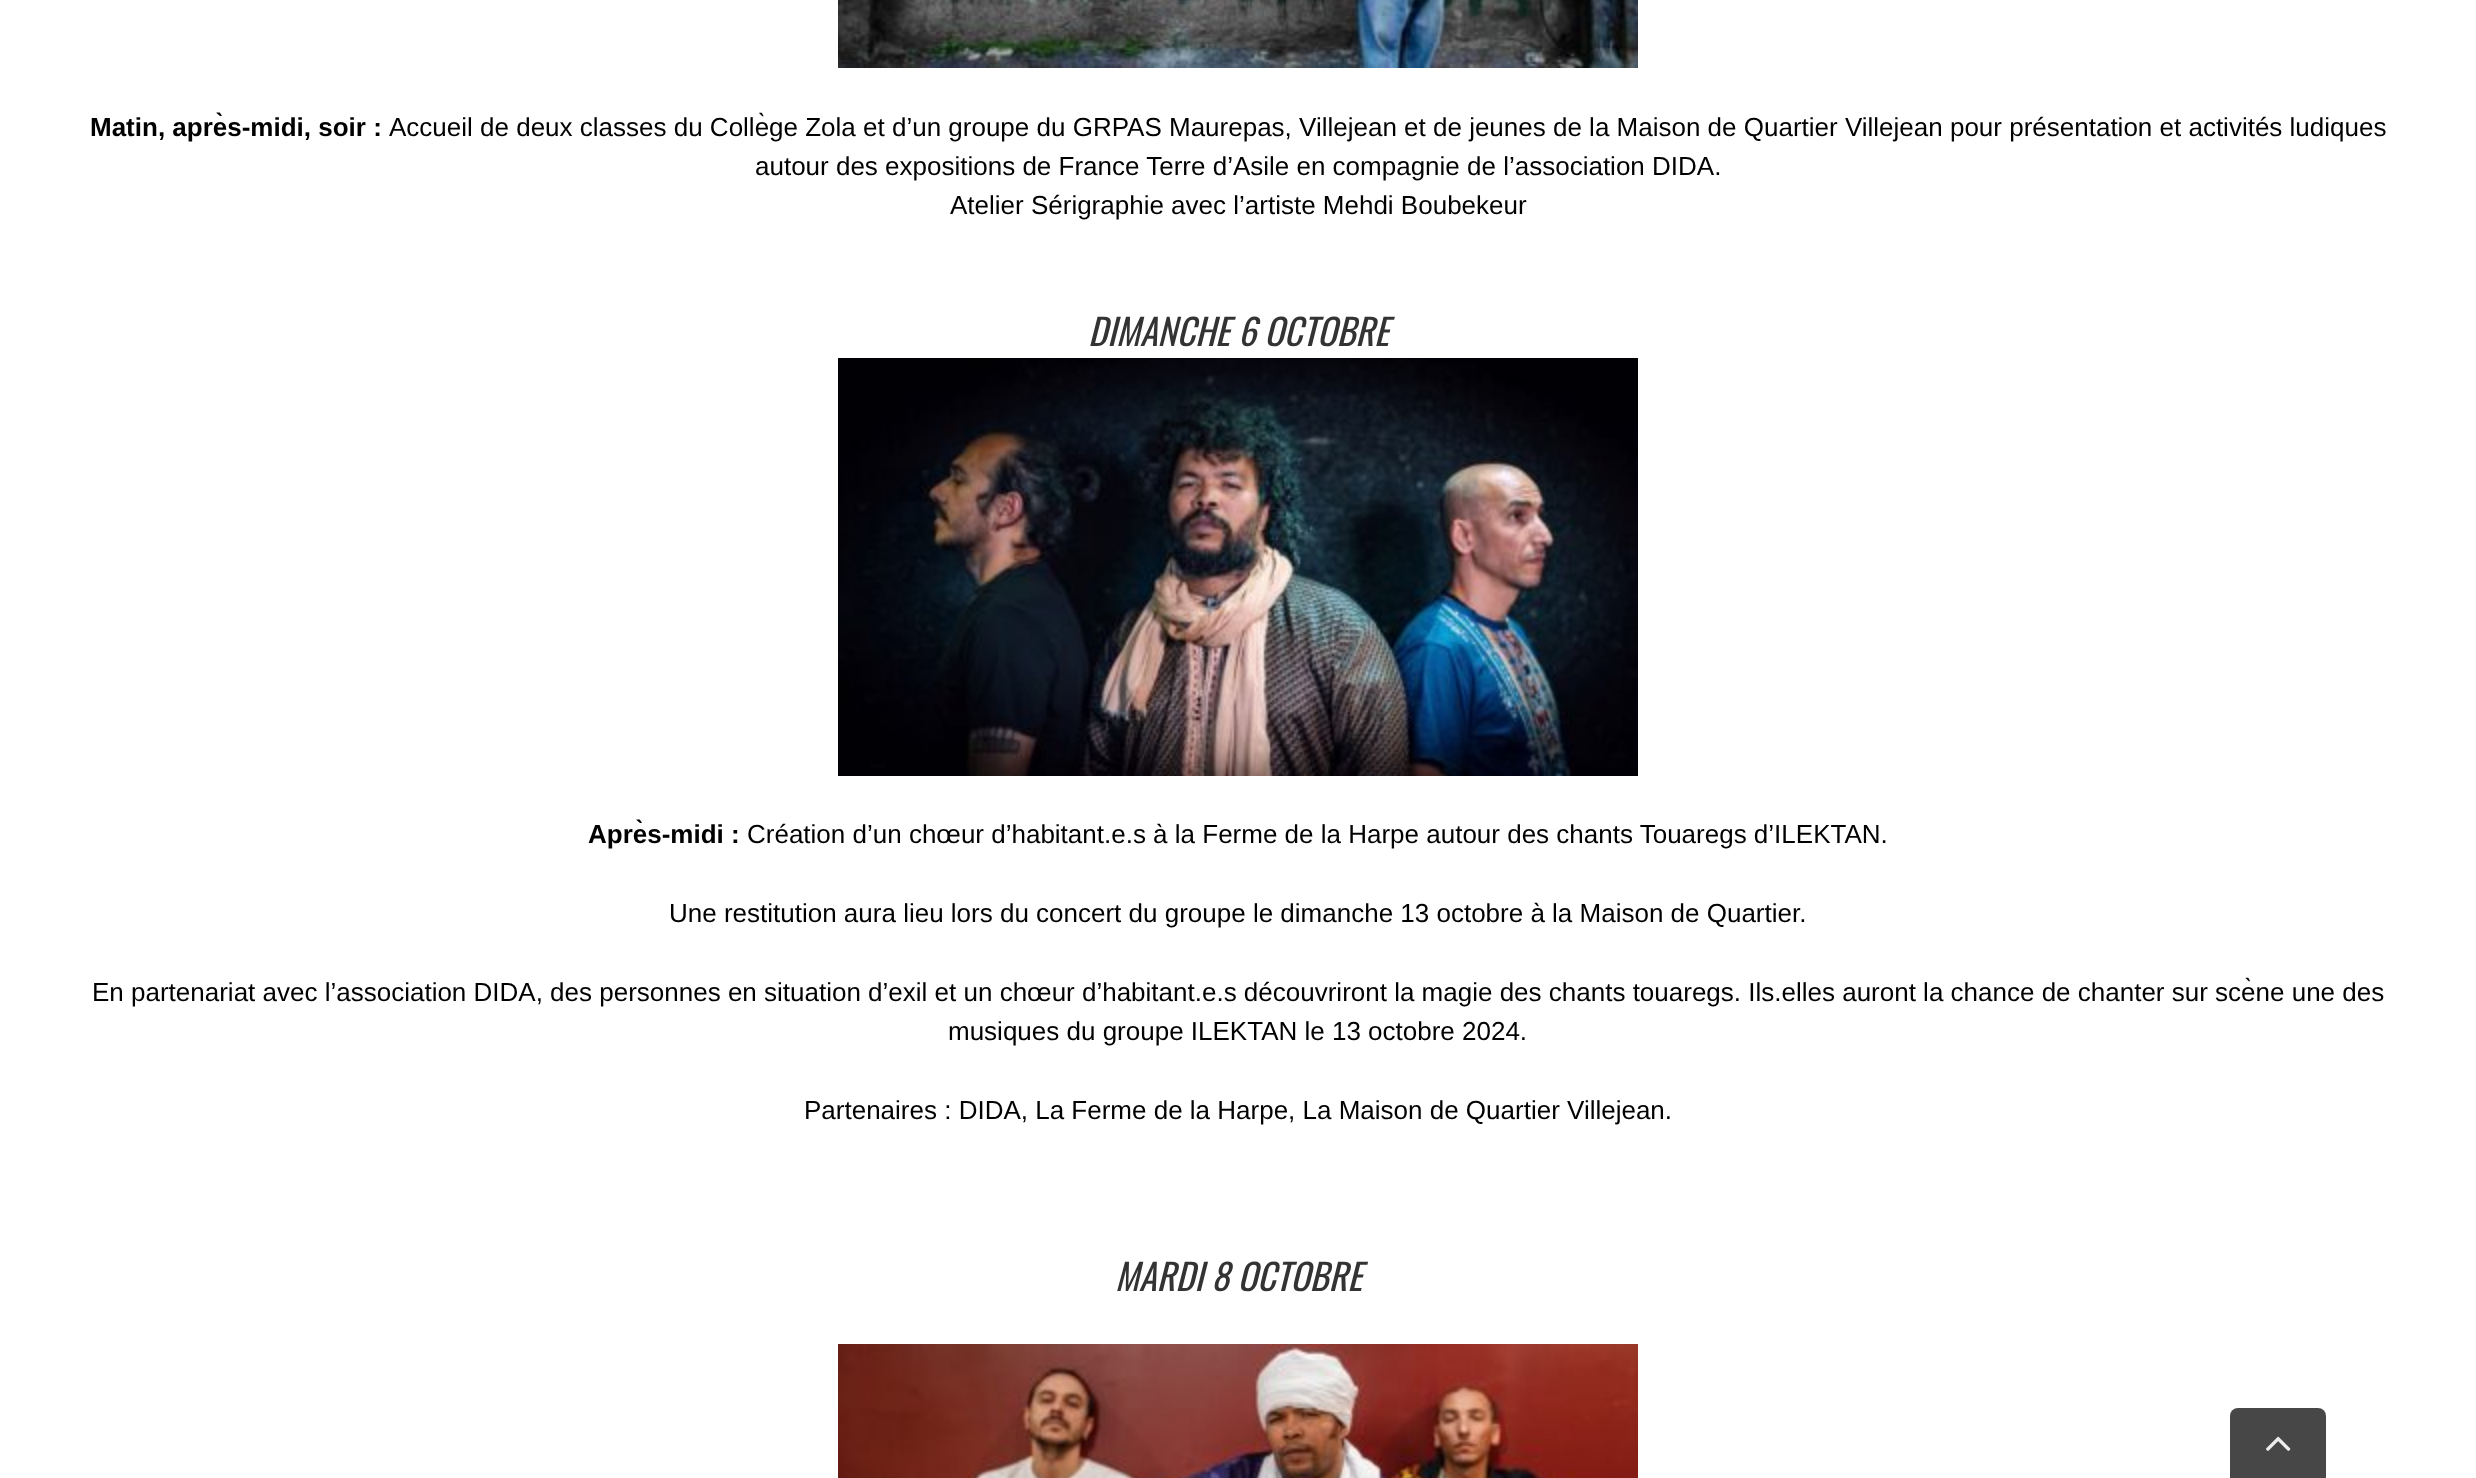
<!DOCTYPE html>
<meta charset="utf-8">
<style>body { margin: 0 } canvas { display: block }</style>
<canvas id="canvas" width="2476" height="1478"></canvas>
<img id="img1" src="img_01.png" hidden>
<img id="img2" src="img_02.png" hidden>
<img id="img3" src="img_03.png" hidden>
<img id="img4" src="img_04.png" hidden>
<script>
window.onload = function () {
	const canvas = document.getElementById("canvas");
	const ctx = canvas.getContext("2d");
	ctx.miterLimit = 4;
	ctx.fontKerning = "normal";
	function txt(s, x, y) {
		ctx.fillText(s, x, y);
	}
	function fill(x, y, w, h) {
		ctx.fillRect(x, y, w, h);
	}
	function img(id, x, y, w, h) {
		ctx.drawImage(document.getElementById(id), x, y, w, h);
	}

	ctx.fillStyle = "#FFFFFF";
	fill(0, 0, 2476, 1478);
	img("img1", 838, 0, 800, 68);
	img("img2", 838, 358, 800, 418);
	img("img3", 838, 1344, 800, 134);
	ctx.fillStyle = "#474747";
	ctx.beginPath();
	ctx.roundRect(2230, 1408, 96, 70, [8, 8, 0, 0]);
	ctx.fill();
	img("img4", 2266, 1436, 25, 15);
	ctx.font = "bold 26px Liberation Sans";
	ctx.fillStyle = "#000000";
	txt("Matin, après-midi, soir :", 90, 136);
	ctx.font = "26px Liberation Sans";
	txt("Accueil de deux classes du Collège Zola et d’un groupe du GRPAS Maurepas, Villejean et de jeunes de la Maison de Quartier Villejean pour présentation et activités ludiques", 389, 136);
	txt("autour des expositions de France Terre d’Asile en compagnie de l’association DIDA.", 755, 175);
	txt("Atelier Sérigraphie avec l’artiste Mehdi Boubekeur", 950, 214);
	ctx.font = "italic 36px Oswald";
	ctx.fillStyle = "#333333";
	txt("DIMANCHE 6 OCTOBRE", 1088, 346);
	ctx.font = "bold 26px Liberation Sans";
	ctx.fillStyle = "#000000";
	txt("Après-midi :", 588, 843);
	ctx.font = "26px Liberation Sans";
	txt("Création d’un chœur d’habitant.e.s à la Ferme de la Harpe autour des chants Touaregs d’ILEKTAN.", 747, 843);
	txt("Une restitution aura lieu lors du concert du groupe le dimanche 13 octobre à la Maison de Quartier.", 669, 922);
	txt("En partenariat avec l’association DIDA, des personnes en situation d’exil et un chœur d’habitant.e.s découvriront la magie des chants touaregs. Ils.elles auront la chance de chanter sur scène une des", 92, 1001);
	txt("musiques du groupe ILEKTAN le 13 octobre 2024.", 948, 1040);
	txt("Partenaires : DIDA, La Ferme de la Harpe, La Maison de Quartier Villejean.", 804, 1119);
	ctx.font = "italic 36px Oswald";
	ctx.fillStyle = "#333333";
	txt("MARDI 8 OCTOBRE", 1115, 1291);
};
</script>
